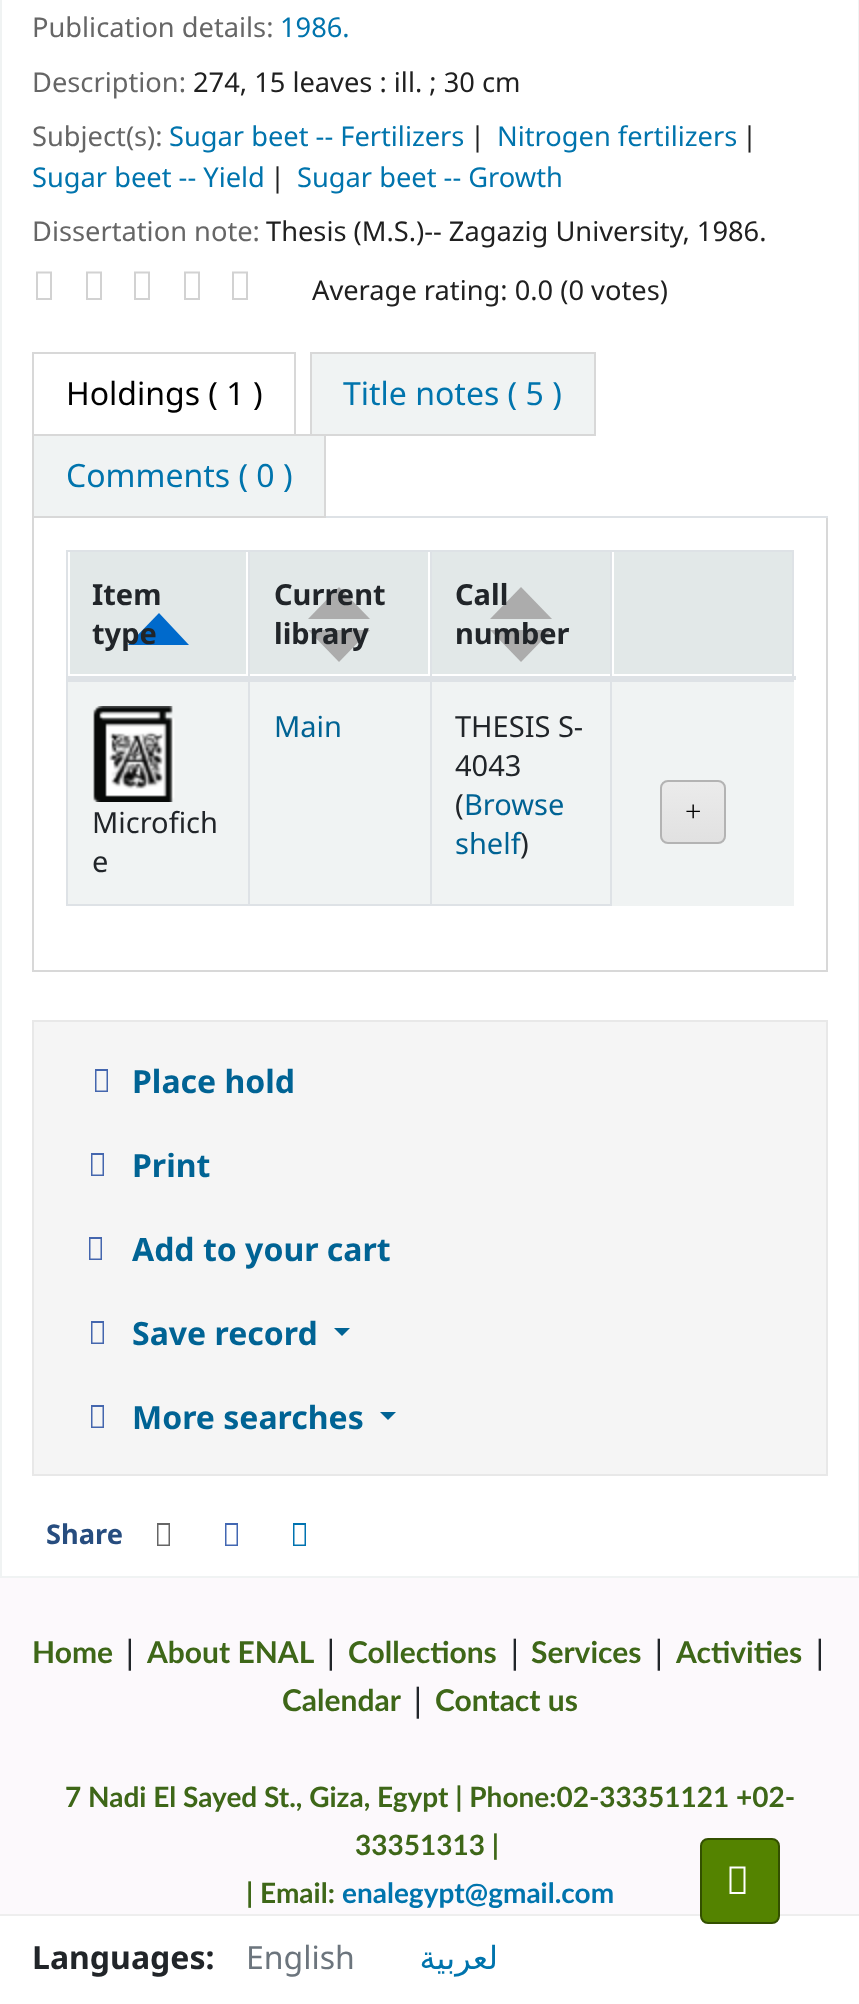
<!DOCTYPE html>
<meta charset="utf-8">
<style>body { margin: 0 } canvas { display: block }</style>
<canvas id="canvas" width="859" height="2004"></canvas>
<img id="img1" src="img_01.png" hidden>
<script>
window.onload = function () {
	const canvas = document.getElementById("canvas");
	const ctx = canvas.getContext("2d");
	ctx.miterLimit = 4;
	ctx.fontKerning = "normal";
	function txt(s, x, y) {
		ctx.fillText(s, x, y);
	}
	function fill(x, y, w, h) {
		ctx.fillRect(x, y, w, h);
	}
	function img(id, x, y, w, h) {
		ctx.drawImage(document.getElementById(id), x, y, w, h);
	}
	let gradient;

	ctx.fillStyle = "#FCF9FC";
	fill(0, 0, 859, 2004);
	ctx.fillStyle = "#FFFFFF";
	ctx.beginPath();
	ctx.rect(1, -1, 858, 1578);
	ctx.fill();
	ctx.strokeStyle = "#F0F3F3";
	ctx.lineWidth = 2;
	ctx.stroke();
	ctx.fillStyle = "#D2D2D2";
	ctx.beginPath();
	ctx.moveTo(36, 300);
	ctx.lineTo(36, 271.5);
	ctx.lineTo(52, 271.5);
	ctx.lineTo(52, 300);
	ctx.closePath();
	ctx.moveTo(38, 298);
	ctx.lineTo(50, 298);
	ctx.lineTo(50, 273.5);
	ctx.lineTo(38, 273.5);
	ctx.closePath();
	ctx.fill();
	ctx.beginPath();
	ctx.moveTo(86, 300);
	ctx.lineTo(86, 271.5);
	ctx.lineTo(102, 271.5);
	ctx.lineTo(102, 300);
	ctx.closePath();
	ctx.moveTo(88, 298);
	ctx.lineTo(100, 298);
	ctx.lineTo(100, 273.5);
	ctx.lineTo(88, 273.5);
	ctx.closePath();
	ctx.fill();
	ctx.beginPath();
	ctx.moveTo(134, 300);
	ctx.lineTo(134, 271.5);
	ctx.lineTo(150, 271.5);
	ctx.lineTo(150, 300);
	ctx.closePath();
	ctx.moveTo(136, 298);
	ctx.lineTo(148, 298);
	ctx.lineTo(148, 273.5);
	ctx.lineTo(136, 273.5);
	ctx.closePath();
	ctx.fill();
	ctx.beginPath();
	ctx.moveTo(184, 300);
	ctx.lineTo(184, 271.5);
	ctx.lineTo(200, 271.5);
	ctx.lineTo(200, 300);
	ctx.closePath();
	ctx.moveTo(186, 298);
	ctx.lineTo(198, 298);
	ctx.lineTo(198, 273.5);
	ctx.lineTo(186, 273.5);
	ctx.closePath();
	ctx.fill();
	ctx.beginPath();
	ctx.moveTo(232, 300);
	ctx.lineTo(232, 271.5);
	ctx.lineTo(248, 271.5);
	ctx.lineTo(248, 300);
	ctx.closePath();
	ctx.moveTo(234, 298);
	ctx.lineTo(246, 298);
	ctx.lineTo(246, 273.5);
	ctx.lineTo(234, 273.5);
	ctx.closePath();
	ctx.fill();
	ctx.fillStyle = "#DEE2E6";
	fill(326, 516, 502, 2);
	ctx.fillStyle = "#D8D8D8";
	fill(32, 352, 264, 2);
	ctx.beginPath();
	ctx.moveTo(296, 352);
	ctx.lineTo(296, 436);
	ctx.lineTo(294, 434);
	ctx.lineTo(294, 354);
	ctx.closePath();
	ctx.fill();
	ctx.beginPath();
	ctx.moveTo(32, 436);
	ctx.lineTo(32, 352);
	ctx.lineTo(34, 354);
	ctx.lineTo(34, 434);
	ctx.closePath();
	ctx.fill();
	ctx.fillStyle = "#F0F3F3";
	ctx.beginPath();
	ctx.rect(311, 353, 284, 82);
	ctx.fill();
	ctx.strokeStyle = "#D8D8D8";
	ctx.stroke();
	ctx.beginPath();
	ctx.rect(33, 435, 292, 82);
	ctx.fill();
	ctx.stroke();
	ctx.fillStyle = "#D8D8D8";
	fill(826, 518, 2, 454);
	fill(32, 970, 796, 2);
	fill(32, 518, 2, 454);
	ctx.fillStyle = "#DEE2E6";
	fill(66, 550, 728, 2);
	fill(792, 550, 2, 126);
	fill(66, 904, 544, 2);
	fill(66, 550, 2, 356);
	ctx.fillStyle = "#E2E8E8";
	fill(614, 552, 178, 122);
	ctx.fillStyle = "#DEE2E6";
	fill(610, 680, 184, 2);
	fill(610, 550, 2, 356);
	fill(430, 680, 182, 2);
	fill(430, 550, 2, 356);
	fill(248, 680, 184, 2);
	fill(248, 550, 2, 356);
	fill(66, 676, 730, 4);
	ctx.fillStyle = "#E2E8E8";
	fill(70, 552, 176, 122);
	ctx.fillStyle = "#006ACC";
	ctx.beginPath();
	ctx.moveTo(189, 645);
	ctx.lineTo(128, 645);
	ctx.lineTo(159, 613);
	ctx.closePath();
	ctx.fill();
	ctx.fillStyle = "#E2E8E8";
	fill(250, 552, 178, 122);
	ctx.fillStyle = "#ACACAC";
	ctx.beginPath();
	ctx.moveTo(370, 630);
	ctx.lineTo(308, 630);
	ctx.lineTo(339, 662);
	ctx.closePath();
	ctx.fill();
	ctx.beginPath();
	ctx.moveTo(370, 619);
	ctx.lineTo(308, 619);
	ctx.lineTo(339, 587);
	ctx.closePath();
	ctx.fill();
	ctx.fillStyle = "#E2E8E8";
	fill(432, 552, 178, 122);
	ctx.fillStyle = "#ACACAC";
	ctx.beginPath();
	ctx.moveTo(552, 630);
	ctx.lineTo(490, 630);
	ctx.lineTo(521, 662);
	ctx.closePath();
	ctx.fill();
	ctx.beginPath();
	ctx.moveTo(552, 619);
	ctx.lineTo(490, 619);
	ctx.lineTo(521, 587);
	ctx.closePath();
	ctx.fill();
	ctx.fillStyle = "#F0F3F3";
	fill(68, 682, 180, 222);
	ctx.fillStyle = "#DEE2E6";
	fill(66, 680, 184, 2);
	img("img1", 93, 706, 82, 96);
	ctx.fillStyle = "#F0F3F3";
	fill(250, 682, 180, 222);
	fill(432, 682, 178, 222);
	fill(612, 682, 182, 224);
	ctx.save();
	ctx.beginPath();
	ctx.roundRect(660, 780, 66, 64, 8);
	ctx.clip();
	gradient = ctx.createLinearGradient(693, 782, 693, 842);
	gradient.addColorStop(0, "#EBEBEB");
	gradient.addColorStop(1, "#E1E1E1");
	ctx.fillStyle = gradient;
	fill(660, 782, 66, 60);
	ctx.restore();
	ctx.beginPath();
	ctx.roundRect(661, 781, 64, 62, 7);
	ctx.strokeStyle = "#B3B3B3";
	ctx.stroke();
	ctx.fillStyle = "#F5F5F5";
	ctx.beginPath();
	ctx.rect(33, 1021, 794, 454);
	ctx.fill();
	ctx.strokeStyle = "#E8E8E8";
	ctx.stroke();
	ctx.fillStyle = "#4466AE";
	ctx.beginPath();
	ctx.moveTo(95, 1092);
	ctx.lineTo(95, 1069);
	ctx.lineTo(108, 1069);
	ctx.lineTo(108, 1092);
	ctx.closePath();
	ctx.moveTo(96.5, 1090.5);
	ctx.lineTo(106.5, 1090.5);
	ctx.lineTo(106.5, 1071);
	ctx.lineTo(96.5, 1071);
	ctx.closePath();
	ctx.fill();
	ctx.beginPath();
	ctx.moveTo(91, 1176);
	ctx.lineTo(91, 1153);
	ctx.lineTo(104, 1153);
	ctx.lineTo(104, 1176);
	ctx.closePath();
	ctx.moveTo(92.5, 1174.5);
	ctx.lineTo(102.5, 1174.5);
	ctx.lineTo(102.5, 1155);
	ctx.lineTo(92.5, 1155);
	ctx.closePath();
	ctx.fill();
	ctx.beginPath();
	ctx.moveTo(89, 1260);
	ctx.lineTo(89, 1237);
	ctx.lineTo(102, 1237);
	ctx.lineTo(102, 1260);
	ctx.closePath();
	ctx.moveTo(90.5, 1258.5);
	ctx.lineTo(100.5, 1258.5);
	ctx.lineTo(100.5, 1239);
	ctx.lineTo(90.5, 1239);
	ctx.closePath();
	ctx.fill();
	ctx.beginPath();
	ctx.moveTo(91, 1344);
	ctx.lineTo(91, 1321);
	ctx.lineTo(104, 1321);
	ctx.lineTo(104, 1344);
	ctx.closePath();
	ctx.moveTo(92.5, 1342.5);
	ctx.lineTo(102.5, 1342.5);
	ctx.lineTo(102.5, 1323);
	ctx.lineTo(92.5, 1323);
	ctx.closePath();
	ctx.fill();
	ctx.fillStyle = "#006394";
	ctx.beginPath();
	ctx.moveTo(334, 1328);
	ctx.lineTo(350, 1328);
	ctx.lineTo(342, 1336);
	ctx.closePath();
	ctx.fill();
	ctx.fillStyle = "#4466AE";
	ctx.beginPath();
	ctx.moveTo(91, 1428);
	ctx.lineTo(91, 1405);
	ctx.lineTo(104, 1405);
	ctx.lineTo(104, 1428);
	ctx.closePath();
	ctx.moveTo(92.5, 1426.5);
	ctx.lineTo(102.5, 1426.5);
	ctx.lineTo(102.5, 1407);
	ctx.lineTo(92.5, 1407);
	ctx.closePath();
	ctx.fill();
	ctx.fillStyle = "#006394";
	ctx.beginPath();
	ctx.moveTo(380, 1412);
	ctx.lineTo(396, 1412);
	ctx.lineTo(388, 1420);
	ctx.closePath();
	ctx.fill();
	ctx.fillStyle = "#666666";
	ctx.beginPath();
	ctx.moveTo(157, 1546);
	ctx.lineTo(157, 1523);
	ctx.lineTo(170, 1523);
	ctx.lineTo(170, 1546);
	ctx.closePath();
	ctx.moveTo(158.5, 1544.5);
	ctx.lineTo(168.5, 1544.5);
	ctx.lineTo(168.5, 1525);
	ctx.lineTo(158.5, 1525);
	ctx.closePath();
	ctx.fill();
	ctx.fillStyle = "#4267B2";
	ctx.beginPath();
	ctx.moveTo(225, 1546);
	ctx.lineTo(225, 1523);
	ctx.lineTo(238, 1523);
	ctx.lineTo(238, 1546);
	ctx.closePath();
	ctx.moveTo(226.5, 1544.5);
	ctx.lineTo(236.5, 1544.5);
	ctx.lineTo(236.5, 1525);
	ctx.lineTo(226.5, 1525);
	ctx.closePath();
	ctx.fill();
	ctx.fillStyle = "#0073B0";
	ctx.beginPath();
	ctx.moveTo(293, 1546);
	ctx.lineTo(293, 1523);
	ctx.lineTo(306, 1523);
	ctx.lineTo(306, 1546);
	ctx.closePath();
	ctx.moveTo(294.5, 1544.5);
	ctx.lineTo(304.5, 1544.5);
	ctx.lineTo(304.5, 1525);
	ctx.lineTo(294.5, 1525);
	ctx.closePath();
	ctx.fill();
	ctx.fillStyle = "#FFFFFF";
	fill(0, 1916, 859, 88);
	ctx.fillStyle = "#EEEEEE";
	fill(0, 1914, 859, 2);
	ctx.fillStyle = "#548300";
	ctx.beginPath();
	ctx.roundRect(701, 1839, 78, 84, 7);
	ctx.fill();
	ctx.strokeStyle = "#335000";
	ctx.stroke();
	ctx.fillStyle = "#FFFFFF";
	ctx.beginPath();
	ctx.moveTo(729.5, 1894);
	ctx.lineTo(729.5, 1866.5);
	ctx.lineTo(745.5, 1866.5);
	ctx.lineTo(745.5, 1894);
	ctx.closePath();
	ctx.moveTo(731.5, 1892);
	ctx.lineTo(743.5, 1892);
	ctx.lineTo(743.5, 1868.5);
	ctx.lineTo(731.5, 1868.5);
	ctx.closePath();
	ctx.fill();
	ctx.font = "27.25px Noto Sans";
	ctx.fillStyle = "#666666";
	txt("Publication details:", 32, 37);
	ctx.fillStyle = "#0074AD";
	txt("1986.", 280, 37);
	ctx.fillStyle = "#666666";
	txt("Description:", 32, 92);
	ctx.fillStyle = "#202020";
	txt("274, 15 leaves : ill. ; 30 cm", 193, 92);
	ctx.fillStyle = "#666666";
	txt("Subject(s):", 32, 146);
	ctx.fillStyle = "#0074AD";
	txt("Sugar beet -- Fertilizers", 169, 146);
	ctx.fillStyle = "#202020";
	txt("|", 470, 146);
	ctx.fillStyle = "#0074AD";
	txt("Nitrogen fertilizers", 497, 146);
	ctx.fillStyle = "#202020";
	txt("|", 742, 146);
	ctx.fillStyle = "#0074AD";
	txt("Sugar beet -- Yield", 32, 187);
	ctx.fillStyle = "#202020";
	txt("|", 270, 187);
	ctx.fillStyle = "#0074AD";
	txt("Sugar beet -- Growth", 297, 187);
	ctx.fillStyle = "#666666";
	txt("Dissertation note:", 32, 241);
	ctx.fillStyle = "#202020";
	txt("Thesis (M.S.)-- Zagazig University, 1986.", 266, 241);
	txt("Average rating: 0.0 (0 votes)", 312, 300);
	ctx.font = "32px Noto Sans";
	ctx.fillStyle = "#000000";
	txt("Holdings ( 1 )", 66, 405);
	ctx.fillStyle = "#0074AD";
	txt("Title notes ( 5 )", 343, 405);
	txt("Comments ( 0 )", 66, 487);
	ctx.font = "bold 29px Noto Sans";
	ctx.fillStyle = "#212529";
	txt("Item", 92, 605);
	txt("type", 92, 644);
	txt("Current", 274, 605);
	txt("library", 274, 644);
	txt("Call", 455, 605);
	txt("number", 455, 644);
	ctx.font = "29px Noto Sans";
	txt("Microfich", 92, 833);
	txt("e", 92, 872);
	ctx.fillStyle = "#006394";
	txt("Main", 274, 737);
	ctx.fillStyle = "#212529";
	txt("THESIS S-", 455, 737);
	txt("4043", 455, 776);
	txt("(", 455, 815);
	ctx.fillStyle = "#006394";
	txt("Browse", 464, 815);
	txt("shelf", 455, 854);
	ctx.fillStyle = "#212529";
	txt(")", 520, 854);
	ctx.font = "29px Liberation Serif";
	ctx.fillStyle = "#000000";
	txt("+", 685, 821);
	ctx.font = "bold 32px Noto Sans";
	ctx.fillStyle = "#006394";
	txt("Place hold", 132, 1093);
	txt("Print", 132, 1177);
	txt("Add to your cart", 132, 1261);
	txt("Save record", 132, 1345);
	txt("More searches", 132, 1429);
	ctx.font = "bold 27.25px Noto Sans";
	ctx.fillStyle = "#274D7F";
	txt("Share", 46, 1544);
	ctx.font = "bold 30px Lato";
	ctx.fillStyle = "#3E6718";
	txt("Home", 32, 1663);
	ctx.font = "32px Noto Sans";
	ctx.fillStyle = "#212529";
	txt("|", 121, 1663);
	ctx.font = "bold 30px Lato";
	ctx.fillStyle = "#3E6718";
	txt("About ENAL", 147, 1663);
	ctx.font = "32px Noto Sans";
	ctx.fillStyle = "#212529";
	txt("|", 322, 1663);
	ctx.font = "bold 30px Lato";
	ctx.fillStyle = "#3E6718";
	txt("Collections", 348, 1663);
	ctx.font = "32px Noto Sans";
	ctx.fillStyle = "#212529";
	txt("|", 506, 1663);
	ctx.font = "bold 30px Lato";
	ctx.fillStyle = "#3E6718";
	txt("Services", 531, 1663);
	ctx.font = "32px Noto Sans";
	ctx.fillStyle = "#212529";
	txt("|", 650, 1663);
	ctx.font = "bold 30px Lato";
	ctx.fillStyle = "#3E6718";
	txt("Activities", 676, 1663);
	ctx.font = "32px Noto Sans";
	ctx.fillStyle = "#212529";
	txt("|", 811, 1663);
	ctx.font = "bold 30px Lato";
	ctx.fillStyle = "#3E6718";
	txt("Calendar", 282, 1711);
	ctx.font = "32px Noto Sans";
	ctx.fillStyle = "#212529";
	txt("|", 409, 1711);
	ctx.font = "bold 30px Lato";
	ctx.fillStyle = "#3E6718";
	txt("Contact us", 435, 1711);
	ctx.font = "bold 28px Lato";
	txt("7 Nadi El Sayed St., Giza, Egypt | Phone:02-33351121 +02-", 65, 1807);
	txt("33351313 |", 355, 1855);
	txt("| Email:", 246, 1903);
	ctx.fillStyle = "#0074AD";
	txt("enalegypt@gmail.com", 342, 1903);
	ctx.font = "bold 32px Noto Sans";
	ctx.fillStyle = "#212529";
	txt("Languages:", 32, 1969);
	ctx.font = "32px Noto Sans";
	ctx.fillStyle = "#6C757D";
	txt("English", 246, 1969);
	ctx.direction = "rtl";
	ctx.font = "32px DejaVu Sans";
	ctx.fillStyle = "#0074AD";
	txt("لعربية", 498, 1969);
};
</script>
